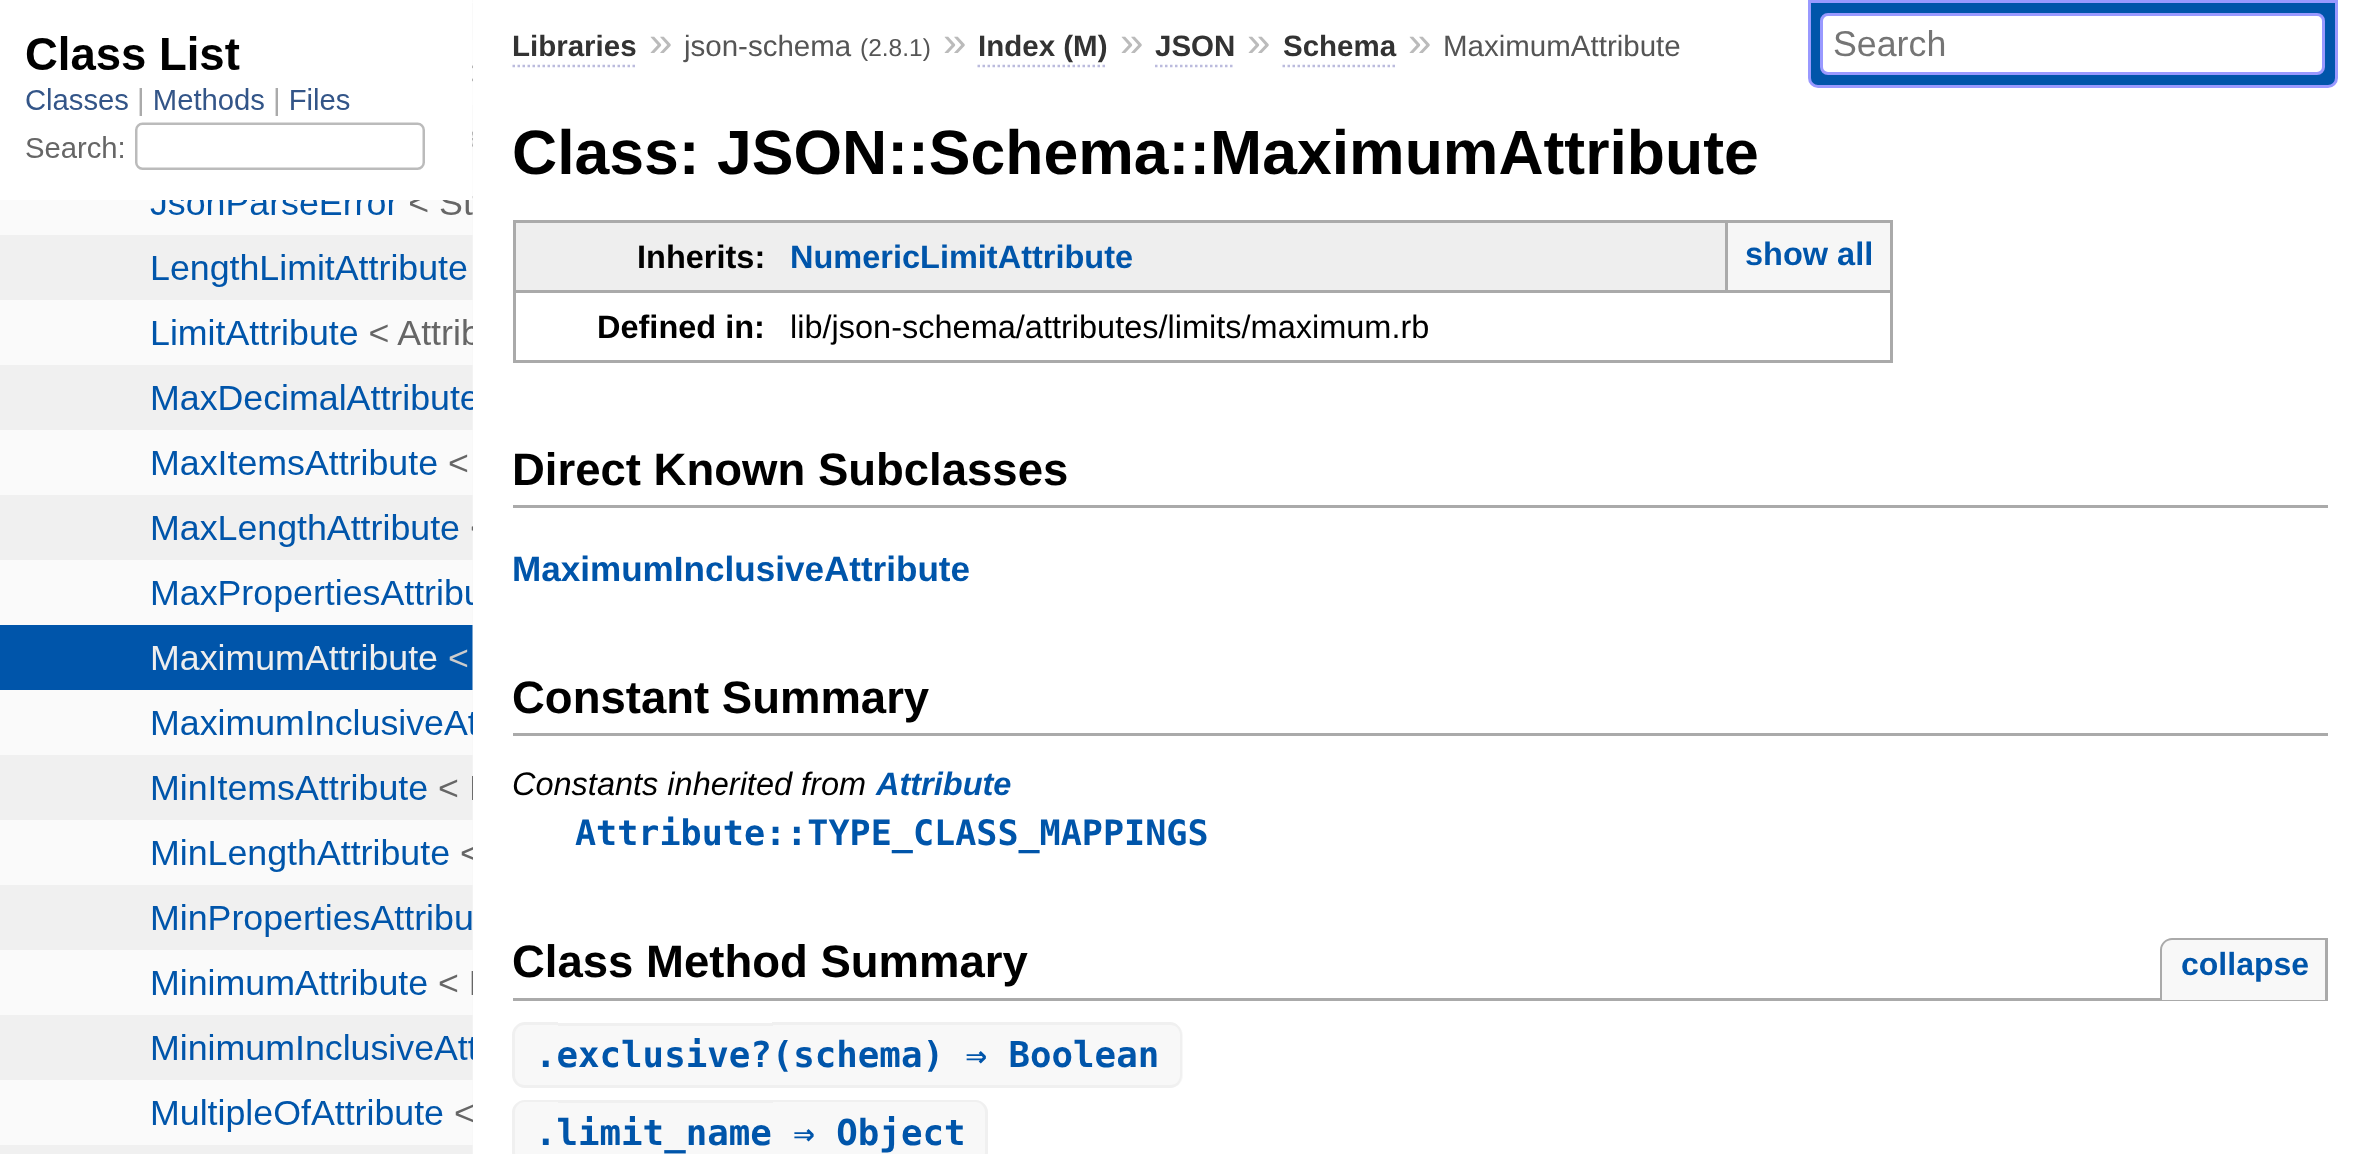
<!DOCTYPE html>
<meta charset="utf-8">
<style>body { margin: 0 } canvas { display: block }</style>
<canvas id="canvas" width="2366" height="1154"></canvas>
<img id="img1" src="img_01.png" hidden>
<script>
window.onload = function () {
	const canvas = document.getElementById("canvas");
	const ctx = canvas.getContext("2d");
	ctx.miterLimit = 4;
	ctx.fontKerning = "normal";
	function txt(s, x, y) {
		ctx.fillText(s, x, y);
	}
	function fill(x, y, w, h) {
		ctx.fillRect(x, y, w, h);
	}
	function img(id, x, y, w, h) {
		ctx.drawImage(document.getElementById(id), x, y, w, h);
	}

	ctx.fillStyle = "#FFFFFF";
	fill(0, 0, 2366, 1154);
	ctx.beginPath();
	ctx.moveTo(474, 0);
	ctx.lineTo(474, 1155);
	ctx.strokeStyle = "#EEEEEE";
	ctx.lineWidth = 2.5;
	ctx.setLineDash([2.5, 2.5]);
	ctx.stroke();
	img("img1", 0, 3, 473, 1151);
	fill(473, 0, 3, 1153);
	ctx.beginPath();
	ctx.moveTo(512.5, 66);
	ctx.lineTo(637.5, 66);
	ctx.strokeStyle = "#BBBBDD";
	ctx.stroke();
	ctx.beginPath();
	ctx.moveTo(977.5, 66);
	ctx.lineTo(1107.5, 66);
	ctx.stroke();
	ctx.beginPath();
	ctx.moveTo(1155, 66);
	ctx.lineTo(1235, 66);
	ctx.stroke();
	ctx.beginPath();
	ctx.moveTo(1282.5, 66);
	ctx.lineTo(1395, 66);
	ctx.stroke();
	ctx.fillStyle = "#0055AA";
	ctx.beginPath();
	ctx.roundRect(1809.5, 1.5, 527, 85, [0, 0, 8.5, 8.5]);
	ctx.fill();
	ctx.strokeStyle = "#9999FF";
	ctx.lineWidth = 3;
	ctx.setLineDash([]);
	ctx.stroke();
	ctx.fillStyle = "#FFFFFF";
	ctx.beginPath();
	ctx.roundRect(1821.5, 14.5, 502, 59, 6.5);
	ctx.fill();
	ctx.stroke();
	ctx.fillStyle = "#EEEEEE";
	fill(516, 223, 1209, 67);
	ctx.fillStyle = "#AAAAAA";
	fill(513, 220, 1380, 3);
	fill(513, 220, 3, 70);
	fill(513, 290, 1380, 3);
	fill(1890, 220, 3, 143);
	ctx.fillStyle = "#F6F6F6";
	fill(1728, 223, 162, 67);
	ctx.fillStyle = "#AAAAAA";
	fill(1725, 223, 3, 67);
	fill(513, 360, 277, 3);
	fill(513, 290, 3, 73);
	fill(790, 360, 1103, 3);
	fill(513, 505, 1815, 3);
	fill(513, 733, 1815, 3);
	fill(513, 998, 1815, 3);
	ctx.fillStyle = "#F8F8F8";
	ctx.beginPath();
	ctx.roundRect(2160, 938, 168, 62, [13, 0, 0, 0]);
	ctx.fill();
	ctx.fillStyle = "#AAAAAA";
	ctx.beginPath();
	ctx.moveTo(2172, 938);
	ctx.lineTo(2328, 938);
	ctx.lineTo(2328, 1000);
	ctx.lineTo(2160, 1000);
	ctx.lineTo(2160, 950);
	ctx.bezierCurveTo(2160, 943, 2166, 938, 2172, 938);
	ctx.closePath();
	ctx.moveTo(2172, 940);
	ctx.lineTo(2325, 940);
	ctx.lineTo(2325, 1000);
	ctx.lineTo(2162, 1000);
	ctx.lineTo(2162, 950);
	ctx.bezierCurveTo(2162, 944, 2167, 940, 2172, 940);
	ctx.closePath();
	ctx.fill("evenodd");
	ctx.fillStyle = "#F8F8F8";
	ctx.beginPath();
	ctx.roundRect(513, 1023, 45, 65, [13, 0, 0, 13]);
	ctx.fill();
	ctx.fillStyle = "#F0F0F0";
	ctx.beginPath();
	ctx.moveTo(525, 1022);
	ctx.lineTo(558, 1022);
	ctx.lineTo(558, 1088);
	ctx.lineTo(525, 1088);
	ctx.bezierCurveTo(518, 1088, 512, 1082, 512, 1075);
	ctx.lineTo(512, 1035);
	ctx.bezierCurveTo(512, 1028, 518, 1022, 525, 1022);
	ctx.closePath();
	ctx.moveTo(525, 1025);
	ctx.lineTo(558, 1025);
	ctx.lineTo(558, 1085);
	ctx.lineTo(525, 1085);
	ctx.bezierCurveTo(519, 1085, 515, 1081, 515, 1075);
	ctx.lineTo(515, 1035);
	ctx.bezierCurveTo(515, 1029, 519, 1025, 525, 1025);
	ctx.closePath();
	ctx.fill("evenodd");
	ctx.fillStyle = "#F8F8F8";
	fill(558, 1026, 215, 59);
	ctx.fillStyle = "#F0F0F0";
	fill(558, 1023, 215, 3);
	fill(558, 1085, 215, 3);
	ctx.fillStyle = "#F8F8F8";
	ctx.beginPath();
	ctx.roundRect(773, 1023, 410, 65, [0, 13, 13, 0]);
	ctx.fill();
	ctx.fillStyle = "#F0F0F0";
	ctx.beginPath();
	ctx.moveTo(772, 1022);
	ctx.lineTo(1170, 1022);
	ctx.bezierCurveTo(1177, 1022, 1182, 1028, 1182, 1035);
	ctx.lineTo(1182, 1075);
	ctx.bezierCurveTo(1182, 1082, 1177, 1088, 1170, 1088);
	ctx.lineTo(772, 1088);
	ctx.closePath();
	ctx.moveTo(772, 1025);
	ctx.lineTo(1170, 1025);
	ctx.bezierCurveTo(1176, 1025, 1180, 1029, 1180, 1035);
	ctx.lineTo(1180, 1075);
	ctx.bezierCurveTo(1180, 1081, 1176, 1085, 1170, 1085);
	ctx.lineTo(772, 1085);
	ctx.closePath();
	ctx.fill("evenodd");
	ctx.fillStyle = "#F8F8F8";
	ctx.beginPath();
	ctx.moveTo(526, 1100);
	ctx.lineTo(558, 1100);
	ctx.lineTo(558, 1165);
	ctx.lineTo(526, 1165);
	ctx.bezierCurveTo(519, 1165, 513, 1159, 513, 1152);
	ctx.lineTo(513, 1113);
	ctx.bezierCurveTo(513, 1106, 519, 1100, 526, 1100);
	ctx.closePath();
	ctx.fill();
	ctx.fillStyle = "#F0F0F0";
	ctx.beginPath();
	ctx.moveTo(525, 1100);
	ctx.lineTo(558, 1100);
	ctx.lineTo(558, 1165);
	ctx.lineTo(525, 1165);
	ctx.bezierCurveTo(518, 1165, 512, 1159, 512, 1152);
	ctx.lineTo(512, 1112);
	ctx.bezierCurveTo(512, 1106, 518, 1100, 525, 1100);
	ctx.closePath();
	ctx.moveTo(525, 1102);
	ctx.lineTo(558, 1102);
	ctx.lineTo(558, 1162);
	ctx.lineTo(525, 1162);
	ctx.bezierCurveTo(519, 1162, 515, 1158, 515, 1152);
	ctx.lineTo(515, 1112);
	ctx.bezierCurveTo(515, 1107, 519, 1102, 525, 1102);
	ctx.closePath();
	ctx.fill("evenodd");
	ctx.fillStyle = "#F8F8F8";
	fill(558, 1103, 215, 51);
	ctx.fillStyle = "#F0F0F0";
	fill(558, 1100, 215, 3);
	ctx.fillStyle = "#F8F8F8";
	ctx.beginPath();
	ctx.moveTo(773, 1100);
	ctx.lineTo(975, 1100);
	ctx.bezierCurveTo(982, 1100, 988, 1106, 988, 1113);
	ctx.lineTo(988, 1152);
	ctx.bezierCurveTo(988, 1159, 982, 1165, 975, 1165);
	ctx.lineTo(773, 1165);
	ctx.closePath();
	ctx.fill();
	ctx.fillStyle = "#F0F0F0";
	ctx.beginPath();
	ctx.moveTo(772, 1100);
	ctx.lineTo(975, 1100);
	ctx.bezierCurveTo(982, 1100, 988, 1106, 988, 1112);
	ctx.lineTo(988, 1152);
	ctx.bezierCurveTo(988, 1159, 982, 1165, 975, 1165);
	ctx.lineTo(772, 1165);
	ctx.closePath();
	ctx.moveTo(772, 1102);
	ctx.lineTo(975, 1102);
	ctx.bezierCurveTo(981, 1102, 985, 1107, 985, 1112);
	ctx.lineTo(985, 1152);
	ctx.bezierCurveTo(985, 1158, 981, 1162, 975, 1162);
	ctx.lineTo(772, 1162);
	ctx.closePath();
	ctx.fill("evenodd");
	ctx.font = "bold 29.5px Liberation Sans";
	ctx.fillStyle = "#333333";
	txt("Libraries", 512, 56);
	ctx.font = "42px Liberation Sans";
	ctx.fillStyle = "#BBBBBB";
	txt("»", 649, 56);
	ctx.font = "29.5px Liberation Sans";
	ctx.fillStyle = "#555555";
	txt("json-schema", 684, 56);
	ctx.font = "24.5px Liberation Sans";
	txt("(2.8.1)", 860, 56);
	ctx.font = "42px Liberation Sans";
	ctx.fillStyle = "#BBBBBB";
	txt("»", 943, 56);
	ctx.font = "bold 29.5px Liberation Sans";
	ctx.fillStyle = "#333333";
	txt("Index (M)", 978, 56);
	ctx.font = "42px Liberation Sans";
	ctx.fillStyle = "#BBBBBB";
	txt("»", 1120, 56);
	ctx.font = "bold 29.5px Liberation Sans";
	ctx.fillStyle = "#333333";
	txt("JSON", 1155, 56);
	ctx.font = "42px Liberation Sans";
	ctx.fillStyle = "#BBBBBB";
	txt("»", 1247, 56);
	ctx.font = "bold 29.5px Liberation Sans";
	ctx.fillStyle = "#333333";
	txt("Schema", 1283, 56);
	ctx.font = "42px Liberation Sans";
	ctx.fillStyle = "#BBBBBB";
	txt("»", 1408, 56);
	ctx.font = "29.5px Liberation Sans";
	ctx.fillStyle = "#555555";
	txt("MaximumAttribute", 1443, 56);
	ctx.font = "35.75px Liberation Sans";
	ctx.fillStyle = "#757575";
	txt("Search", 1833, 56);
	ctx.font = "bold 62.5px Liberation Sans";
	ctx.fillStyle = "#000000";
	txt("Class: JSON::Schema::MaximumAttribute", 512, 174);
	ctx.font = "bold 32.5px Liberation Sans";
	txt("Inherits:", 637, 268);
	ctx.fillStyle = "#0055AA";
	txt("NumericLimitAttribute", 790, 268);
	txt("show all", 1745, 265);
	ctx.fillStyle = "#000000";
	txt("Defined in:", 597, 338);
	ctx.font = "32.5px Liberation Sans";
	txt("lib/json-schema/attributes/limits/maximum.rb", 790, 338);
	ctx.font = "bold 45.5px Liberation Sans";
	txt("Direct Known Subclasses", 512, 485);
	ctx.font = "bold 35.1px Liberation Sans";
	ctx.fillStyle = "#0055AA";
	txt("MaximumInclusiveAttribute", 512, 581);
	ctx.font = "bold 45.5px Liberation Sans";
	ctx.fillStyle = "#000000";
	txt("Constant Summary", 512, 713);
	ctx.font = "italic 32.5px Liberation Sans";
	txt("Constants inherited from", 512, 795);
	ctx.font = "italic bold 32.5px Liberation Sans";
	ctx.fillStyle = "#0055AA";
	txt("Attribute", 876, 795);
	ctx.font = "bold 35.1px DejaVu Sans Mono";
	txt("Attribute::TYPE_CLASS_MAPPINGS", 575, 845);
	ctx.font = "bold 45.5px Liberation Sans";
	ctx.fillStyle = "#000000";
	txt("Class Method Summary", 512, 977);
	ctx.font = "bold 32px Liberation Sans";
	ctx.fillStyle = "#0055AA";
	txt("collapse", 2181, 975);
	ctx.font = "bold 35.75px DejaVu Sans Mono";
	txt(".exclusive?(schema) ⇒ Boolean", 535, 1067);
	txt(".limit_name ⇒ Object", 535, 1145);
};
</script>
